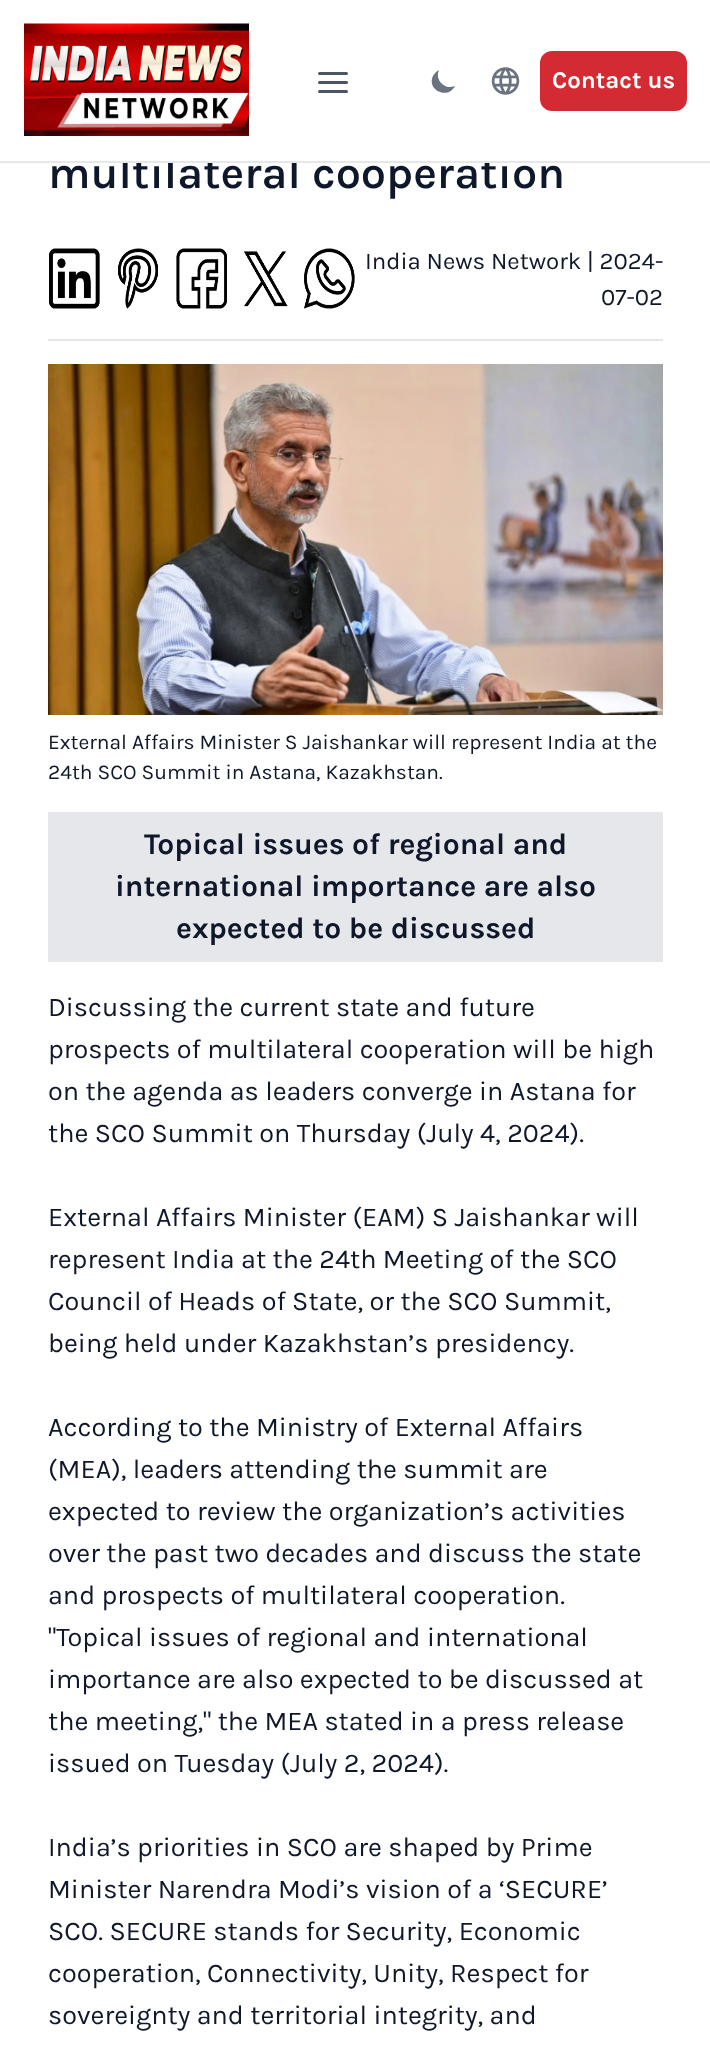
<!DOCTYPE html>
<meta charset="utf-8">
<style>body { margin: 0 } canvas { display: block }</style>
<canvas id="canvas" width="710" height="2048"></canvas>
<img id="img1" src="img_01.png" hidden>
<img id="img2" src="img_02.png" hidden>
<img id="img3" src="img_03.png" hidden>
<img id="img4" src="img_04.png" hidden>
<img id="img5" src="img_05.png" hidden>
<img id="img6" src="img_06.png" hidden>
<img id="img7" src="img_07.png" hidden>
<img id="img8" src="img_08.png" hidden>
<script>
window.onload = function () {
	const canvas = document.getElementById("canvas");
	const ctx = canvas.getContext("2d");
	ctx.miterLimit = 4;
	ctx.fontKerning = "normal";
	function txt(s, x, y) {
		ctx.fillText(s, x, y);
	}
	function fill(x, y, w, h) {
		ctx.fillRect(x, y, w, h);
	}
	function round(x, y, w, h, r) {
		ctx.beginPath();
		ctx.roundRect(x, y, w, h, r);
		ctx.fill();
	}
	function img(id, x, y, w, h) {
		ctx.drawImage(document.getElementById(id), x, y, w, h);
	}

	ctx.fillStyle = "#FFFFFF";
	fill(0, 0, 710, 2048);
	img("img1", 24, 23, 225, 113);
	ctx.fillStyle = "#4B5563";
	round(318, 72, 30, 3, 1.5);
	round(318, 81, 30, 3, 1.5);
	round(318, 90, 30, 3, 1.5);
	ctx.fillStyle = "#6B7280";
	ctx.beginPath();
	ctx.moveTo(455, 86);
	ctx.bezierCurveTo(445, 90.5, 434.5, 80, 439, 70);
	ctx.bezierCurveTo(436, 71.5, 434, 74, 432.5, 77);
	ctx.bezierCurveTo(427.5, 91, 448.5, 99.5, 455, 86);
	ctx.closePath();
	ctx.fill();
	img("img2", 491, 67, 29, 28);
	ctx.fillStyle = "#D42A33";
	round(540, 51, 147, 60, 12);
	img("img3", 49, 248, 51, 61);
	img("img4", 118, 248, 40, 61);
	img("img5", 176, 248, 51, 61);
	img("img6", 244, 251, 44, 56);
	img("img7", 304, 248, 51, 61);
	ctx.fillStyle = "#E5E7EB";
	fill(48, 339, 615, 2);
	img("img8", 48, 364, 615, 351);
	fill(48, 812, 615, 150);
	ctx.font = "bold 24px Karla";
	ctx.fillStyle = "#FFFFFF";
	txt("Contact us", 552, 88);
	ctx.font = "600 45px Karla";
	ctx.fillStyle = "#0F172A";
	txt("multilateral cooperation", 48, 188);
	ctx.fillStyle = "#E5E7EB";
	fill(0, 161, 710, 2);
	ctx.fillStyle = "#FFFFFF";
	fill(122, 156, 386, 5);
	ctx.font = "24px Karla";
	ctx.fillStyle = "#0F172A";
	txt("India News Network | 2024-", 365, 269);
	txt("07-02", 601, 305);
	ctx.font = "21px Karla";
	txt("External Affairs Minister S Jaishankar will represent India at the", 48, 749);
	txt("24th SCO Summit in Astana, Kazakhstan.", 48, 779);
	ctx.font = "bold 30px Karla";
	txt("Topical issues of regional and", 144, 854);
	txt("international importance are also", 115, 896);
	txt("expected to be discussed", 176, 938);
	ctx.font = "27px Karla";
	txt("Discussing the current state and future", 48, 1016);
	txt("prospects of multilateral cooperation will be high", 48, 1058);
	txt("on the agenda as leaders converge in Astana for", 48, 1100);
	txt("the SCO Summit on Thursday (July 4, 2024).", 48, 1142);
	txt("External Affairs Minister (EAM) S Jaishankar will", 48, 1226);
	txt("represent India at the 24th Meeting of the SCO", 48, 1268);
	txt("Council of Heads of State, or the SCO Summit,", 48, 1310);
	txt("being held under Kazakhstan’s presidency.", 48, 1352);
	txt("According to the Ministry of External Affairs", 48, 1436);
	txt("(MEA), leaders attending the summit are", 48, 1478);
	txt("expected to review the organization’s activities", 48, 1520);
	txt("over the past two decades and discuss the state", 48, 1562);
	txt("and prospects of multilateral cooperation.", 48, 1604);
	txt("\"Topical issues of regional and international", 48, 1646);
	txt("importance are also expected to be discussed at", 48, 1688);
	txt("the meeting,\" the MEA stated in a press release", 48, 1730);
	txt("issued on Tuesday (July 2, 2024).", 48, 1772);
	txt("India’s priorities in SCO are shaped by Prime", 48, 1856);
	txt("Minister Narendra Modi’s vision of a ‘SECURE’", 48, 1898);
	txt("SCO. SECURE stands for Security, Economic", 48, 1940);
	txt("cooperation, Connectivity, Unity, Respect for", 48, 1982);
	txt("sovereignty and territorial integrity, and", 48, 2024);
};
</script>
